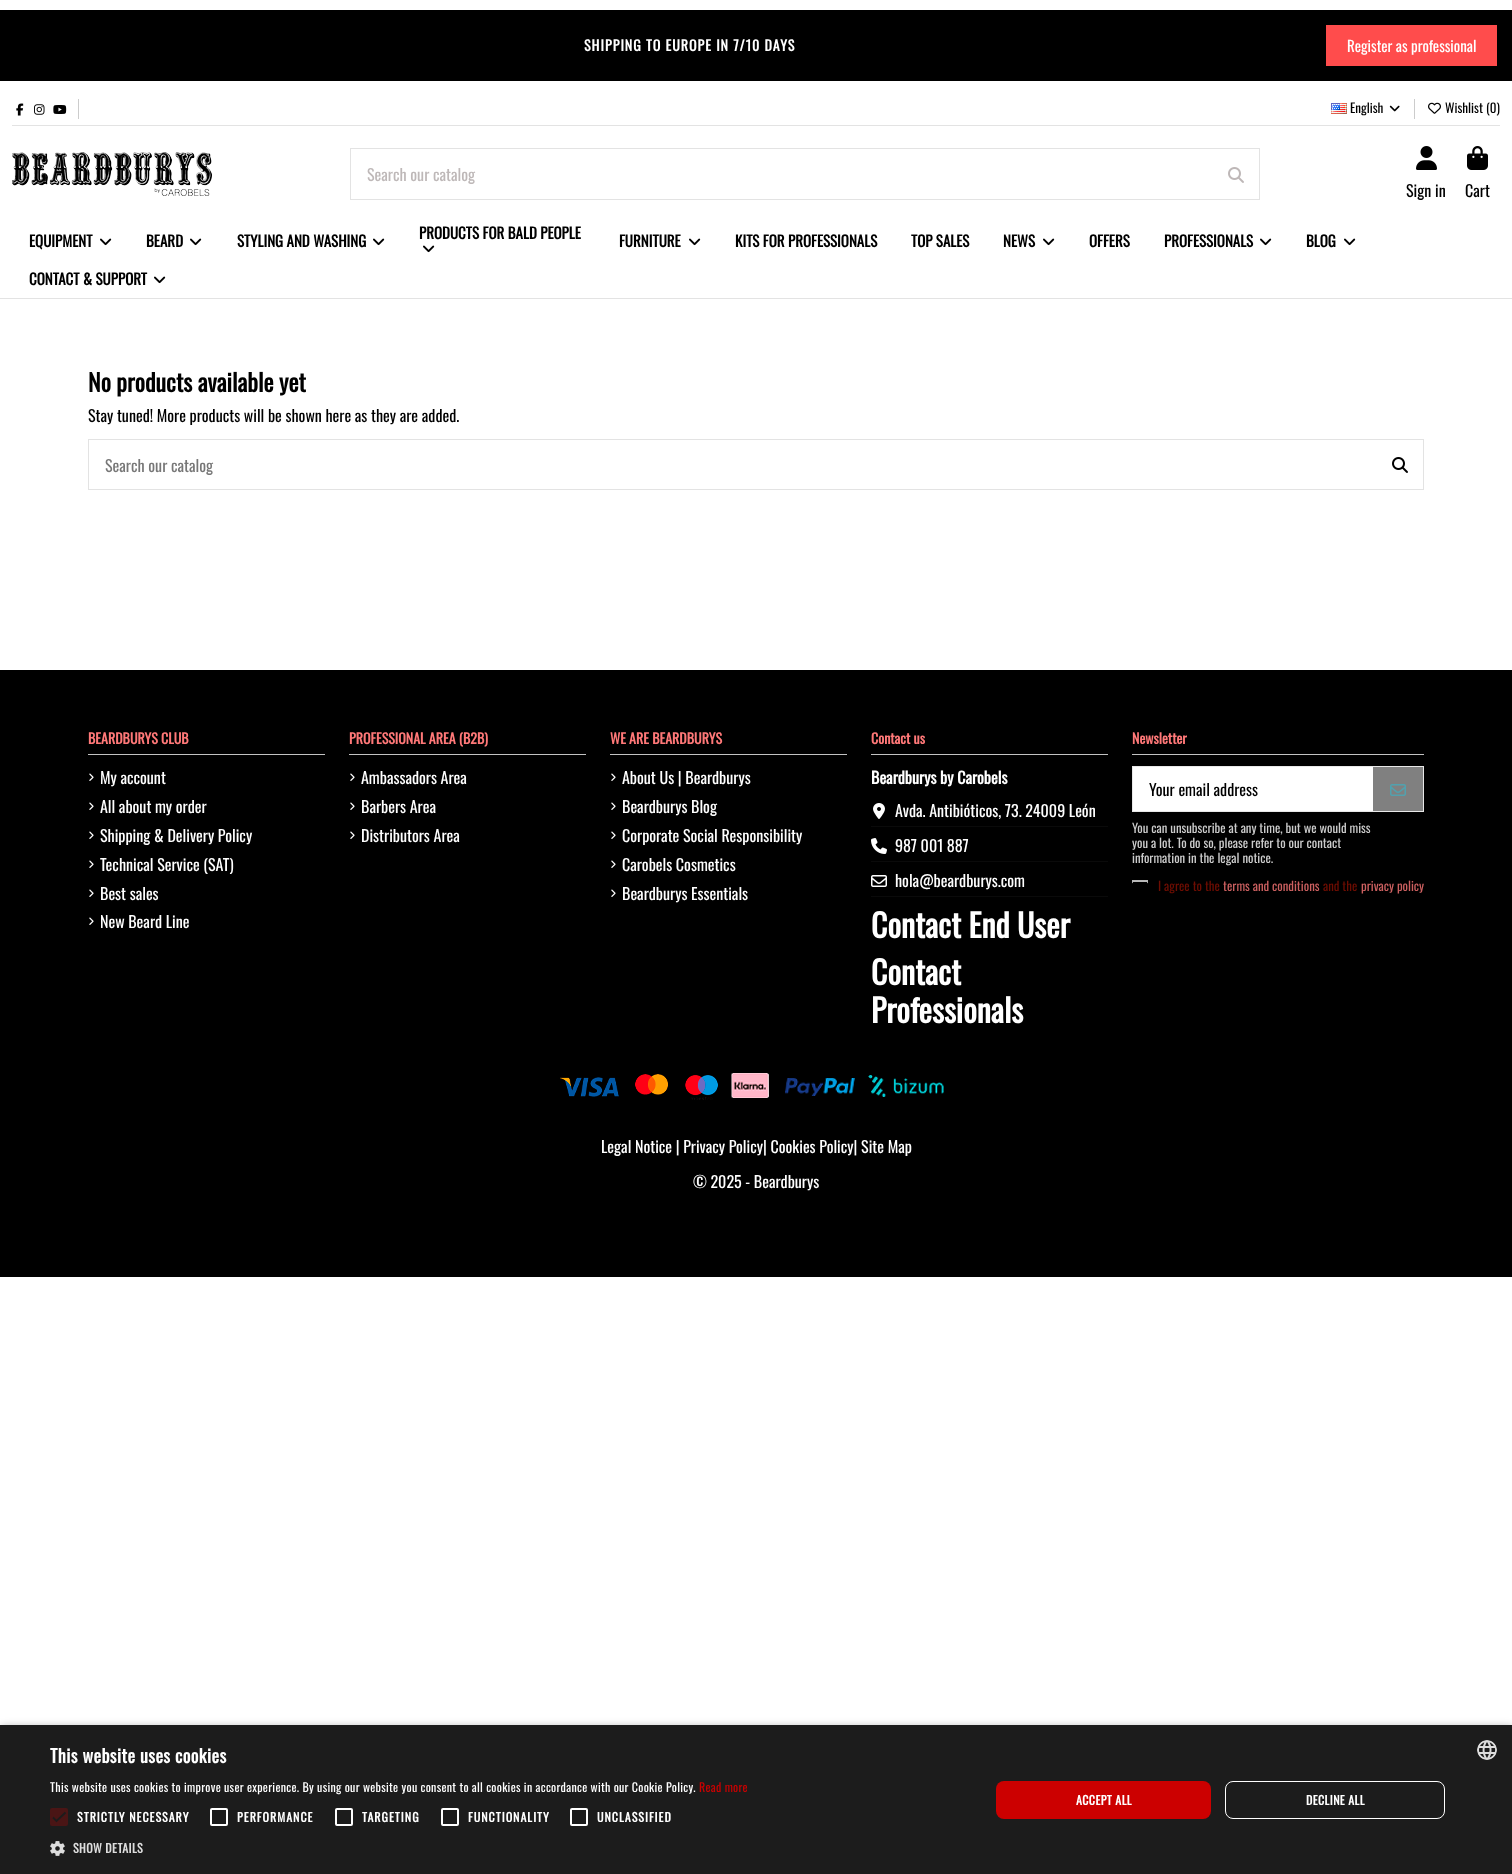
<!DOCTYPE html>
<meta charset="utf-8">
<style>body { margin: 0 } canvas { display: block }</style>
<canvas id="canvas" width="1512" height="1874"></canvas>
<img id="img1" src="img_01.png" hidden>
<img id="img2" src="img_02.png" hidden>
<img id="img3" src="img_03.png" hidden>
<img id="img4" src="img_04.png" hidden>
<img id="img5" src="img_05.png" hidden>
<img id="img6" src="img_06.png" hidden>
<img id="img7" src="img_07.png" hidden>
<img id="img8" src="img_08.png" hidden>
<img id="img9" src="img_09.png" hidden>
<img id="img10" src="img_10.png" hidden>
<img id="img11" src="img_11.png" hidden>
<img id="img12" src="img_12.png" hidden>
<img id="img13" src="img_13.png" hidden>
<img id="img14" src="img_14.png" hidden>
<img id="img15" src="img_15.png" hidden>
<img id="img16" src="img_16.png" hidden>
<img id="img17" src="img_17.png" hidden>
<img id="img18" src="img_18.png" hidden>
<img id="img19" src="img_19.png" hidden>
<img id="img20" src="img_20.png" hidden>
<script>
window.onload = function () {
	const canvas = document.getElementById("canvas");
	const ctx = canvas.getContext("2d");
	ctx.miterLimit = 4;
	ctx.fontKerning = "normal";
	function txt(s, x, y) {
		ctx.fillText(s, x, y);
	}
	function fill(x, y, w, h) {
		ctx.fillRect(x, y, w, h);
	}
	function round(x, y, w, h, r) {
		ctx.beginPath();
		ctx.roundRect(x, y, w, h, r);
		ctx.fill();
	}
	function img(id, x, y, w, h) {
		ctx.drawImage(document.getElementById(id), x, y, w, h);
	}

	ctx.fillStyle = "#FFFFFF";
	fill(0, 0, 1512, 1874);
	ctx.fillStyle = "#E3E3E3";
	fill(0, 298, 1512, 1);
	ctx.fillStyle = "#000000";
	fill(0, 10, 1512, 71);
	ctx.fillStyle = "#FF4C4C";
	fill(1326, 25, 171, 41);
	ctx.fillStyle = "#E3E3E3";
	fill(12, 125, 1488, 1);
	img("img1", 16, 103, 8, 13);
	img("img2", 34, 104, 11, 11);
	img("img3", 53, 105, 14, 9);
	ctx.fillStyle = "#CCCCCC";
	fill(78, 99, 1, 20);
	img("img4", 1331, 103, 16, 11);
	img("img5", 1389, 105, 11, 7);
	fill(1414, 99, 1, 20);
	img("img6", 1428, 102, 13, 12);
	img("img7", 12, 152, 200, 44);
	ctx.strokeStyle = "#E3E3E3";
	ctx.strokeRect(350.5, 148.5, 909, 51);
	img("img8", 1228, 167, 16, 16);
	img("img9", 1416, 146, 21, 24);
	img("img10", 1467, 146, 21, 24);
	img("img11", 100, 238, 12, 8);
	img("img11", 190, 238, 12, 8);
	img("img11", 373, 238, 12, 8);
	img("img11", 423, 245, 12, 8);
	img("img11", 689, 238, 12, 8);
	img("img11", 1043, 238, 12, 8);
	img("img11", 1260, 238, 12, 8);
	img("img11", 1344, 238, 12, 8);
	img("img11", 154, 276, 12, 8);
	ctx.strokeRect(88.5, 439.5, 1335, 50);
	img("img12", 1392, 457, 16, 16);
	ctx.fillStyle = "#000000";
	fill(0, 670, 1512, 607);
	ctx.fillStyle = "#C2C2C2";
	fill(88, 754, 237, 1);
	img("img13", 89, 773, 5, 8);
	img("img13", 89, 802, 5, 8);
	img("img13", 89, 831, 5, 8);
	img("img13", 89, 860, 5, 8);
	img("img13", 89, 889, 5, 8);
	img("img13", 89, 917, 5, 8);
	fill(349, 754, 237, 1);
	img("img13", 350, 773, 5, 8);
	img("img13", 350, 802, 5, 8);
	img("img13", 350, 831, 5, 8);
	fill(610, 754, 237, 1);
	img("img13", 611, 773, 5, 8);
	img("img13", 611, 802, 5, 8);
	img("img13", 611, 831, 5, 8);
	img("img13", 611, 860, 5, 8);
	img("img13", 611, 889, 5, 8);
	fill(871, 754, 237, 1);
	img("img14", 873, 803, 12, 16);
	ctx.fillStyle = "#0A0A0A";
	fill(871, 826, 237, 1);
	img("img15", 871, 838, 16, 16);
	fill(871, 861, 237, 1);
	img("img16", 871, 875, 16, 12);
	fill(871, 896, 237, 1);
	ctx.fillStyle = "#C2C2C2";
	fill(1132, 754, 292, 1);
	ctx.fillStyle = "#FFFFFF";
	fill(1133, 767, 240, 44);
	ctx.strokeStyle = "#E8E8E8";
	ctx.strokeRect(1132.5, 766.5, 291, 45);
	ctx.fillStyle = "#808080";
	fill(1373, 767, 50, 44);
	img("img17", 1390, 784, 16, 12);
	ctx.fillStyle = "#BABABA";
	fill(1133, 881, 14, 1);
	ctx.strokeStyle = "#B6B6B6";
	ctx.strokeRect(1132.5, 880.5, 15, 15);
	ctx.fillStyle = "#000000";
	ctx.beginPath();
	ctx.roundRect(1132.5, 882.5, 15, 15, 1.5);
	ctx.fill();
	ctx.strokeStyle = "#000000";
	ctx.stroke();
	img("img18", 560, 1073, 384, 27);
	ctx.fillStyle = "rgba(0, 0, 0, 0.35)";
	ctx.filter = "blur(4px)";
	ctx.beginPath();
	ctx.rect(1, 1727, 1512, 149);
	ctx.fill();
	ctx.filter = "none";
	ctx.fillStyle = "#1C1C1C";
	fill(0, 1725, 1512, 149);
	ctx.fillStyle = "#4A1515";
	round(50, 1808, 18, 18, 2);
	ctx.beginPath();
	ctx.moveTo(53, 1817.5);
	ctx.lineTo(56.5, 1821);
	ctx.lineTo(65.5, 1812.5);
	ctx.strokeStyle = "#1C1C1C";
	ctx.lineWidth = 1.8;
	ctx.stroke();
	ctx.beginPath();
	ctx.roundRect(211, 1809, 16, 16, 1);
	ctx.strokeStyle = "#FFFFFF";
	ctx.lineWidth = 2;
	ctx.stroke();
	ctx.beginPath();
	ctx.roundRect(336, 1809, 16, 16, 1);
	ctx.stroke();
	ctx.beginPath();
	ctx.roundRect(442, 1809, 16, 16, 1);
	ctx.stroke();
	ctx.beginPath();
	ctx.roundRect(571, 1809, 16, 16, 1);
	ctx.stroke();
	img("img19", 50, 1841, 15, 15);
	ctx.fillStyle = "#CC0000";
	round(996, 1781, 215, 38, 8);
	ctx.beginPath();
	ctx.roundRect(1225.5, 1781.5, 219, 37, 7.5);
	ctx.lineWidth = 1;
	ctx.stroke();
	img("img20", 1477, 1740, 20, 20);
	ctx.letterSpacing = "1px";
	ctx.font = "bold 14px Oswald";
	ctx.fillStyle = "#FFFFFF";
	txt("SHIPPING TO EUROPE IN 7/10 DAYS", 584, 51);
	ctx.letterSpacing = "0px";
	ctx.font = "15px Oswald";
	txt("Register as professional", 1347, 52);
	ctx.font = "13px Oswald";
	ctx.fillStyle = "#000000";
	txt("English", 1350, 113);
	txt("Wishlist (0)", 1445, 113);
	ctx.font = "16px Oswald";
	ctx.fillStyle = "#BEB8B8";
	txt("Search our catalog", 367, 181);
	ctx.fillStyle = "#000000";
	txt("Sign in", 1406, 197);
	txt("Cart", 1465, 197);
	ctx.font = "bold 15px Oswald";
	txt("EQUIPMENT", 29, 247);
	txt("BEARD", 146, 247);
	txt("STYLING AND WASHING", 237, 247);
	txt("PRODUCTS FOR BALD PEOPLE", 419, 239);
	txt("FURNITURE", 619, 247);
	txt("KITS FOR PROFESSIONALS", 735, 247);
	txt("TOP SALES", 911, 247);
	txt("NEWS", 1003, 247);
	txt("OFFERS", 1089, 247);
	txt("PROFESSIONALS", 1164, 247);
	txt("BLOG", 1306, 247);
	txt("CONTACT & SUPPORT", 29, 285);
	ctx.font = "bold 24px Oswald";
	txt("No products available yet", 88, 392);
	ctx.font = "16px Oswald";
	txt("Stay tuned! More products will be shown here as they are added.", 88, 422);
	ctx.fillStyle = "#777777";
	txt("Search our catalog", 105, 472);
	ctx.font = "bold 14px Oswald";
	ctx.fillStyle = "#FF7878";
	txt("BEARDBURYS CLUB", 88, 744);
	ctx.font = "16px Oswald";
	ctx.fillStyle = "#FFFFFF";
	txt("My account", 100, 784);
	txt("All about my order", 100, 813);
	txt("Shipping & Delivery Policy", 100, 842);
	txt("Technical Service (SAT)", 100, 871);
	txt("Best sales", 100, 900);
	txt("New Beard Line", 100, 928);
	ctx.font = "bold 14px Oswald";
	ctx.fillStyle = "#FF7878";
	txt("PROFESSIONAL AREA (B2B)", 349, 744);
	ctx.font = "16px Oswald";
	ctx.fillStyle = "#FFFFFF";
	txt("Ambassadors Area", 361, 784);
	txt("Barbers Area", 361, 813);
	txt("Distributors Area", 361, 842);
	ctx.font = "bold 14px Oswald";
	ctx.fillStyle = "#FF7878";
	txt("WE ARE BEARDBURYS", 610, 744);
	ctx.font = "16px Oswald";
	ctx.fillStyle = "#FFFFFF";
	txt("About Us | Beardburys", 622, 784);
	txt("Beardburys Blog", 622, 813);
	txt("Corporate Social Responsibility", 622, 842);
	txt("Carobels Cosmetics", 622, 871);
	txt("Beardburys Essentials", 622, 900);
	ctx.font = "bold 14px Oswald";
	ctx.fillStyle = "#FF7878";
	txt("Contact us", 871, 744);
	ctx.font = "bold 16px Oswald";
	ctx.fillStyle = "#FFFFFF";
	txt("Beardburys by Carobels", 871, 784);
	ctx.font = "16px Oswald";
	txt("Avda. Antibióticos, 73. 24009 León", 895, 817);
	txt("987 001 887", 895, 852);
	txt("hola@beardburys.com", 895, 887);
	ctx.font = "bold 32px Oswald";
	txt("Contact End User", 871, 938);
	txt("Contact", 871, 985);
	txt("Professionals", 871, 1023);
	ctx.font = "bold 14px Oswald";
	ctx.fillStyle = "#FF7878";
	txt("Newsletter", 1132, 744);
	ctx.font = "16px Oswald";
	ctx.fillStyle = "#000000";
	txt("Your email address", 1149, 796);
	ctx.font = "12.75px Oswald";
	ctx.fillStyle = "#CCCCCC";
	txt("You can unsubscribe at any time, but we would miss", 1132, 833);
	txt("you a lot. To do so, please refer to our contact", 1132, 848);
	txt("information in the legal notice.", 1132, 863);
	ctx.fillStyle = "#6E0D02";
	txt("I agree to the", 1158, 891);
	ctx.fillStyle = "#CC6060";
	txt("terms and conditions", 1223, 891);
	ctx.fillStyle = "#6E0D02";
	txt("and the", 1323, 891);
	ctx.fillStyle = "#CC6060";
	txt("privacy policy", 1361, 891);
	ctx.font = "16px Oswald";
	ctx.fillStyle = "#FFFFFF";
	txt("Legal Notice | Privacy Policy| Cookies Policy| Site Map", 601, 1153);
	txt("© 2025 - Beardburys", 693, 1188);
	ctx.letterSpacing = "0.4px";
	ctx.font = "bold 18px Oswald";
	txt("This website uses cookies", 50, 1763);
	ctx.letterSpacing = "0.3px";
	ctx.font = "12px Oswald";
	txt("This website uses cookies to improve user experience. By using our website you consent to all cookies in accordance with our Cookie Policy.", 50, 1792);
	ctx.fillStyle = "#CC0000";
	txt("Read more", 699, 1792);
	ctx.letterSpacing = "1px";
	ctx.font = "bold 12px Oswald";
	ctx.fillStyle = "#FFFFFF";
	txt("STRICTLY NECESSARY", 77, 1822);
	txt("PERFORMANCE", 237, 1822);
	txt("TARGETING", 362, 1822);
	txt("FUNCTIONALITY", 468, 1822);
	txt("UNCLASSIFIED", 597, 1822);
	ctx.letterSpacing = "0.4px";
	ctx.fillStyle = "#DDDDDD";
	txt("SHOW DETAILS", 73, 1853);
	ctx.fillStyle = "#FFFFFF";
	txt("ACCEPT ALL", 1076, 1805);
	txt("DECLINE ALL", 1306, 1805);
};
</script>
